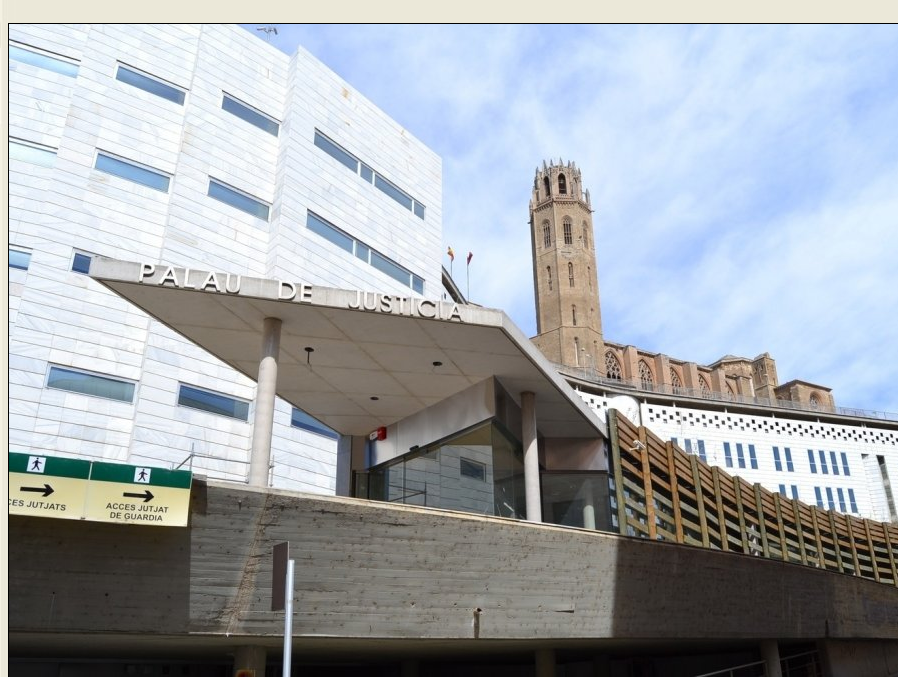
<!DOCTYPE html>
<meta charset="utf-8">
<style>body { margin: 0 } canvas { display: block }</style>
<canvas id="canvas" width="898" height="677"></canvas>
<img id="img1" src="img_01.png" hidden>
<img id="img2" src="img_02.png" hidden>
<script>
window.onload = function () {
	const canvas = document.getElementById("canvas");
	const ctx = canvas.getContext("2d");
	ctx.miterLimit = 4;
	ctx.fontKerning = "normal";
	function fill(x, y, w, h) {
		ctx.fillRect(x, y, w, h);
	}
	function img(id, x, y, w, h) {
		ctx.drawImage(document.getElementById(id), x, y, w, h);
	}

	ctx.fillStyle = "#FFFFFF";
	fill(0, 0, 898, 677);
	img("img1", 0, 0, 898, 677);
	ctx.strokeStyle = "#000000";
	ctx.strokeRect(8.5, 23.5, 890, 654);
	img("img2", 9, 24, 889, 653);
};
</script>
